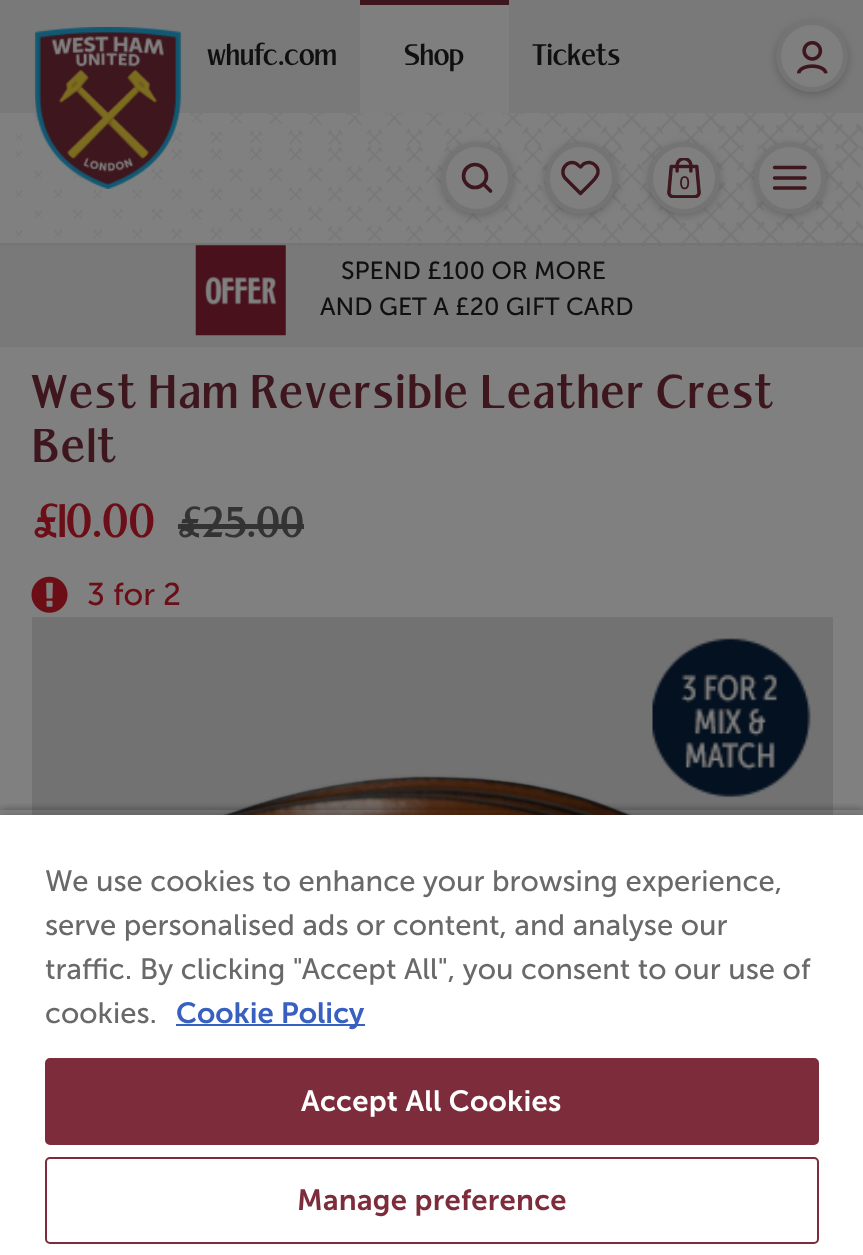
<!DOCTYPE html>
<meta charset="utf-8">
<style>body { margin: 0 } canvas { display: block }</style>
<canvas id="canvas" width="863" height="1255"></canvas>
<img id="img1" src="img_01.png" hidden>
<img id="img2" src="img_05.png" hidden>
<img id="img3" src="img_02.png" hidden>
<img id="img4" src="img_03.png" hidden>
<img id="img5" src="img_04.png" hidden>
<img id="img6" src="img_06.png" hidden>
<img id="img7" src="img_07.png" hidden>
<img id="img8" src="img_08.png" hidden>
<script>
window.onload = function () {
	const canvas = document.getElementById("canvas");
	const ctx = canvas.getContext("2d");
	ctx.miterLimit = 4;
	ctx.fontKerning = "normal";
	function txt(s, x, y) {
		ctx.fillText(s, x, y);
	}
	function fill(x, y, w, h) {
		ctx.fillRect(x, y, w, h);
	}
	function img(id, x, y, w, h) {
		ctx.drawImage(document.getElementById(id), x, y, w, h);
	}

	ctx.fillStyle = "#808080";
	fill(0, 0, 863, 1255);
	ctx.fillStyle = "#797979";
	fill(0, 0, 863, 113);
	ctx.fillStyle = "#7F7F7F";
	fill(360, 5, 149, 108);
	ctx.fillStyle = "#3E161E";
	fill(360, 0, 149, 5);
	ctx.fillStyle = "rgba(0, 0, 0, 0.2)";
	ctx.filter = "blur(4.5px)";
	ctx.beginPath();
	ctx.roundRect(776, 23, 72, 72, 36);
	ctx.fill();
	ctx.filter = "none";
	ctx.fillStyle = "#7F7F7F";
	ctx.beginPath();
	ctx.arc(812, 56, 33.5, 0, Math.PI * 2);
	ctx.fill();
	ctx.strokeStyle = "#747474";
	ctx.lineWidth = 5;
	ctx.stroke();
	img("img1", 797, 40, 31, 34);
	ctx.fillStyle = "#797979";
	fill(0, 245, 863, 102);
	img("img2", 195, 245, 91, 91);
	img("img3", 15, 113, 848, 133);
	ctx.fillStyle = "#747474";
	fill(0, 243, 863, 2);
	img("img4", 34, 27, 148, 162);
	ctx.fillStyle = "rgba(0, 0, 0, 0.2)";
	ctx.filter = "blur(4.5px)";
	ctx.beginPath();
	ctx.roundRect(441, 144, 72, 72, 36);
	ctx.fill();
	ctx.filter = "none";
	ctx.fillStyle = "#7F7F7F";
	ctx.beginPath();
	ctx.arc(477, 178, 33.5, 0, Math.PI * 2);
	ctx.fill();
	ctx.stroke();
	ctx.beginPath();
	ctx.arc(475, 176, 11.5, 0, Math.PI * 2);
	ctx.strokeStyle = "#3E161E";
	ctx.lineWidth = 3.6;
	ctx.stroke();
	ctx.beginPath();
	ctx.moveTo(484, 184.5);
	ctx.lineTo(490.5, 191);
	ctx.lineCap = "round";
	ctx.stroke();
	ctx.fillStyle = "rgba(0, 0, 0, 0.2)";
	ctx.filter = "blur(4.5px)";
	ctx.beginPath();
	ctx.roundRect(545, 144, 72, 72, 36);
	ctx.fill();
	ctx.filter = "none";
	ctx.fillStyle = "#7F7F7F";
	ctx.beginPath();
	ctx.arc(581, 178, 33.5, 0, Math.PI * 2);
	ctx.fill();
	ctx.strokeStyle = "#747474";
	ctx.lineWidth = 5;
	ctx.stroke();
	ctx.beginPath();
	ctx.moveTo(595.5, 165.5);
	ctx.bezierCurveTo(592.5, 162, 587.5, 161.5, 583.5, 164);
	ctx.lineTo(580.5, 167);
	ctx.lineTo(578.5, 165.5);
	ctx.bezierCurveTo(575, 161.5, 569, 161.5, 565.5, 165.5);
	ctx.bezierCurveTo(562, 169, 562, 175, 565.5, 178.5);
	ctx.lineTo(580.5, 193.5);
	ctx.lineTo(589.5, 184.5);
	ctx.bezierCurveTo(593, 180.5, 599, 176.5, 598, 170);
	ctx.bezierCurveTo(597.5, 168, 596.5, 166.5, 595.5, 165.5);
	ctx.closePath();
	ctx.strokeStyle = "#3E161E";
	ctx.lineWidth = 3.4;
	ctx.lineJoin = "round";
	ctx.stroke();
	ctx.fillStyle = "rgba(0, 0, 0, 0.2)";
	ctx.filter = "blur(4.5px)";
	ctx.beginPath();
	ctx.roundRect(648, 144, 72, 72, 36);
	ctx.fill();
	ctx.filter = "none";
	ctx.fillStyle = "#7F7F7F";
	ctx.beginPath();
	ctx.arc(684, 178, 33.5, 0, Math.PI * 2);
	ctx.fill();
	ctx.strokeStyle = "#747474";
	ctx.lineWidth = 5;
	ctx.stroke();
	img("img5", 667, 158, 34, 40);
	ctx.fillStyle = "rgba(0, 0, 0, 0.2)";
	ctx.filter = "blur(4.5px)";
	ctx.beginPath();
	ctx.roundRect(754, 144, 72, 72, 36);
	ctx.fill();
	ctx.filter = "none";
	ctx.fillStyle = "#7F7F7F";
	ctx.beginPath();
	ctx.arc(790, 178, 33.5, 0, Math.PI * 2);
	ctx.fill();
	ctx.stroke();
	ctx.beginPath();
	ctx.moveTo(774.5, 178);
	ctx.lineTo(805, 178);
	ctx.moveTo(774.5, 167.5);
	ctx.lineTo(805, 167.5);
	ctx.moveTo(774.5, 188);
	ctx.lineTo(805, 188);
	ctx.strokeStyle = "#3E161E";
	ctx.lineWidth = 3.4;
	ctx.stroke();
	ctx.fillStyle = "#333333";
	fill(178, 524, 126, 5);
	img("img6", 31, 576, 37, 37);
	img("img7", 32, 617, 801, 198);
	img("img8", 652, 638, 159, 160);
	ctx.save();
	ctx.beginPath();
	ctx.rect(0, 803, 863, 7);
	ctx.clip();
	ctx.fillStyle = "rgba(0, 0, 0, 0.35)";
	ctx.filter = "blur(4.5px)";
	ctx.beginPath();
	ctx.rect(0, 810, 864, 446);
	ctx.fill();
	ctx.filter = "none";
	ctx.restore();
	ctx.fillStyle = "rgba(0, 0, 0, 0.2)";
	ctx.filter = "blur(4.5px)";
	ctx.beginPath();
	ctx.rect(0, 815, 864, 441);
	ctx.fill();
	ctx.filter = "none";
	ctx.fillStyle = "#FFFFFF";
	fill(0, 815, 863, 440);
	ctx.fillStyle = "#3860BE";
	fill(176, 1024, 189, 2);
	ctx.fillStyle = "#7C2C3B";
	ctx.beginPath();
	ctx.roundRect(46, 1059, 772, 85, 4);
	ctx.fill();
	ctx.strokeStyle = "#7C2C3B";
	ctx.lineWidth = 2;
	ctx.lineJoin = "miter";
	ctx.stroke();
	ctx.beginPath();
	ctx.roundRect(46, 1158, 772, 85, 4);
	ctx.stroke();
	ctx.font = "31.5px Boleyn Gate";
	ctx.fillStyle = "#101010";
	txt("whufc.com", 207, 65);
	txt("Shop", 404, 65);
	txt("Tickets", 532, 65);
	ctx.font = "18px Museo Sans";
	ctx.fillStyle = "#3E161E";
	txt("0", 679, 189);
	ctx.font = "24.8px Museo Sans";
	ctx.fillStyle = "#101010";
	txt("SPEND £100 OR MORE", 341, 279);
	txt("AND GET A £20 GIFT CARD", 320, 315);
	ctx.letterSpacing = "2.25px";
	ctx.font = "50px Boleyn Gate";
	ctx.fillStyle = "#3E161E";
	txt("West Ham Reversible Leather Crest", 32, 408);
	txt("Belt", 32, 462);
	ctx.letterSpacing = "0px";
	ctx.fillStyle = "#6C0E17";
	txt("£10.00", 32, 537);
	ctx.font = "45.5px Boleyn Gate";
	ctx.fillStyle = "#333333";
	txt("£25.00", 177, 537);
	ctx.font = "31.5px Museo Sans";
	ctx.fillStyle = "#6C0E17";
	txt("3 for 2", 87, 605);
	ctx.font = "29.25px Museo Sans";
	ctx.fillStyle = "#696969";
	txt("We use cookies to enhance your browsing experience,", 45, 891);
	txt("serve personalised ads or content, and analyse our", 45, 935);
	txt("traffic. By clicking \"Accept All\", you consent to our use of", 45, 979);
	txt("cookies.", 45, 1023);
	ctx.font = "600 29.25px Museo Sans";
	ctx.fillStyle = "#3860BE";
	txt("Cookie Policy", 176, 1023);
	ctx.letterSpacing = "0.25px";
	ctx.fillStyle = "#FFFFFF";
	txt("Accept All Cookies", 301, 1111);
	ctx.fillStyle = "#7C2C3B";
	txt("Manage preference", 297, 1210);
};
</script>
